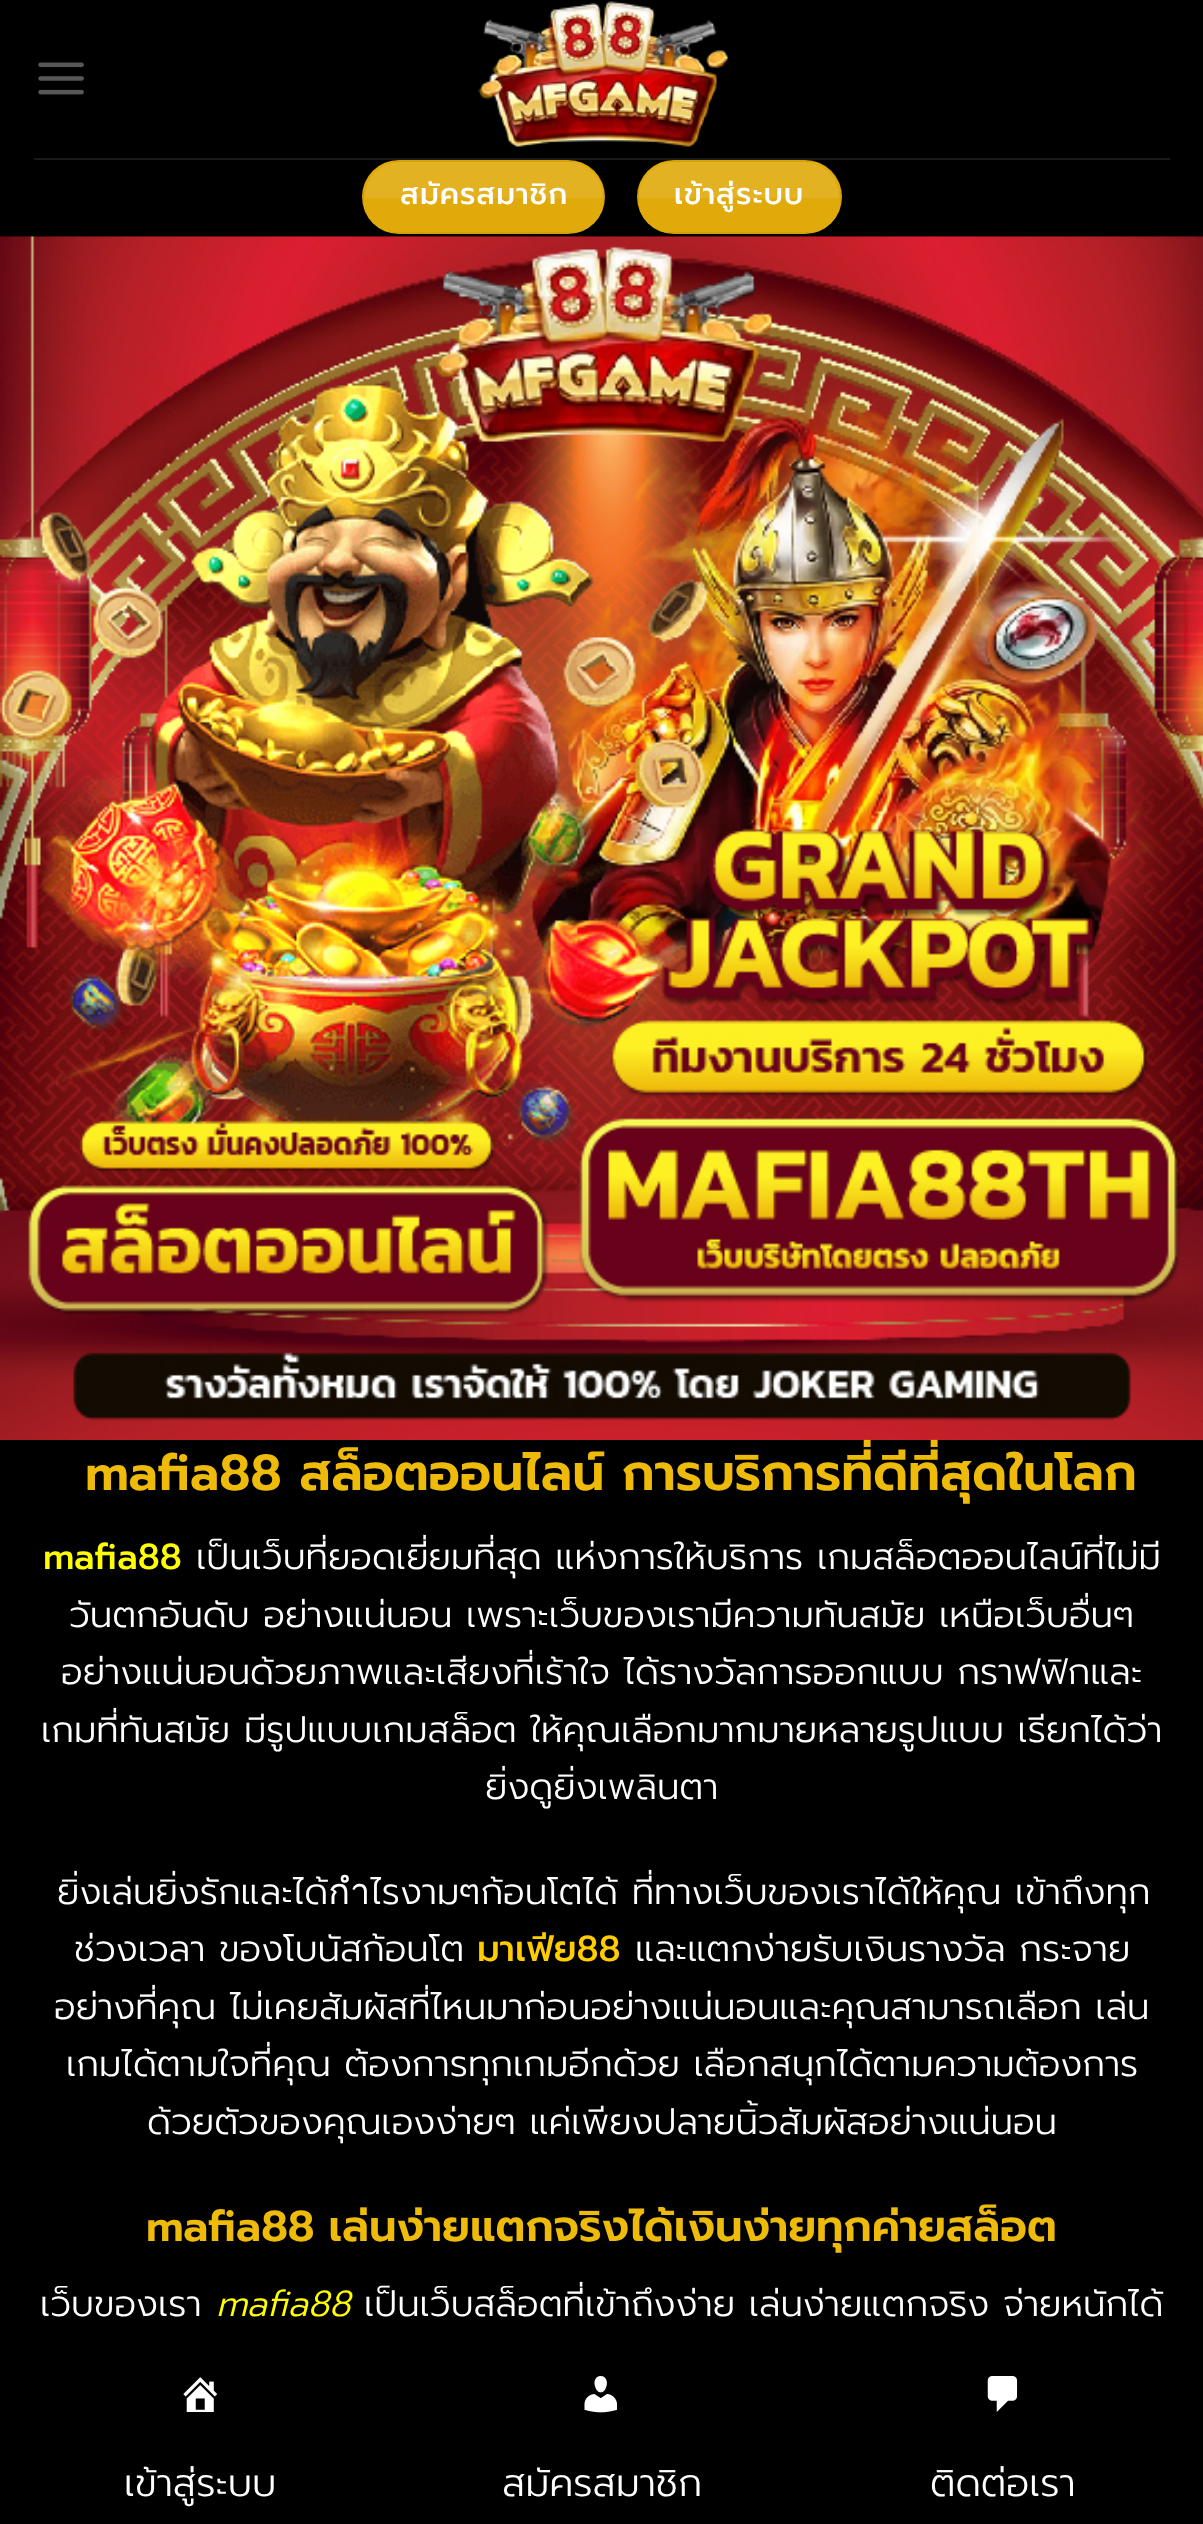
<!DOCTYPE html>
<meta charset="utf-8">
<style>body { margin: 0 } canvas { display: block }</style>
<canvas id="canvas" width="1203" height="2524"></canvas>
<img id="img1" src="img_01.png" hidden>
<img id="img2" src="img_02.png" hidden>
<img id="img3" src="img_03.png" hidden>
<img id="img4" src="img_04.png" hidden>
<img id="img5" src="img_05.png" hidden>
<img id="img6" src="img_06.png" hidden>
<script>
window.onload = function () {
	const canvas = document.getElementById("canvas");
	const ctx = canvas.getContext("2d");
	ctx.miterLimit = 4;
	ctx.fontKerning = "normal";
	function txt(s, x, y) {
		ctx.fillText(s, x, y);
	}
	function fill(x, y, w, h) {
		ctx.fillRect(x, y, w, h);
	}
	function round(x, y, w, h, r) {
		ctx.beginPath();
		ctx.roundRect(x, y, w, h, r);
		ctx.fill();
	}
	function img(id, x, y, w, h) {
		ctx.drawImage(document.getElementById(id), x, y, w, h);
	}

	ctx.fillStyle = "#000000";
	fill(0, 0, 1203, 2524);
	img("img1", 38, 62, 46, 33);
	img("img2", 478, 1, 250, 146);
	ctx.fillStyle = "#1A1A1A";
	fill(34, 158, 1136, 2);
	ctx.fillStyle = "#E0AA0A";
	round(362, 160, 243, 74, 37);
	ctx.strokeStyle = "rgba(0, 0, 0, 0.05)";
	ctx.lineWidth = 2;
	ctx.strokeRect(363, 161, 241, 72);
	ctx.fillStyle = "rgba(255, 255, 255, 0.1)";
	ctx.beginPath();
	ctx.roundRect(365, 162, 238, 36, [35, 35, 0, 0]);
	ctx.fill();
	ctx.fillStyle = "#E0AA0A";
	round(637, 160, 205, 74, 37);
	ctx.strokeRect(638, 161, 203, 72);
	ctx.fillStyle = "rgba(255, 255, 255, 0.1)";
	ctx.beginPath();
	ctx.roundRect(639, 162, 200, 36, [35, 35, 0, 0]);
	ctx.fill();
	img("img3", 0, 236, 1203, 1204);
	img("img4", 183, 2377, 35, 35);
	img("img5", 584, 2376, 33, 37);
	img("img6", 987, 2376, 31, 36);
	ctx.letterSpacing = "0.9px";
	ctx.font = "500 29.75px Prompt";
	ctx.fillStyle = "#FFFFFF";
	txt("สมัครสมาชิก", 400, 204);
	txt("เข้าสู่ระบบ", 674, 204);
	ctx.letterSpacing = "0px";
	ctx.font = "600 50.4px Prompt";
	ctx.fillStyle = "#EEBB0A";
	txt("mafia88 สล็อตออนไลน์ การบริการที่ดีที่สุดในโลก", 85, 1490);
	ctx.font = "500 36px Prompt";
	ctx.fillStyle = "#FFFF00";
	txt("mafia88", 43, 1569);
	ctx.font = "300 36px Prompt";
	ctx.fillStyle = "#FFFFFF";
	txt("เป็นเว็บที่ยอดเยี่ยมที่สุด แห่งการให้บริการ เกมสล็อตออนไลน์ที่ไม่มี", 196, 1569);
	txt("วันตกอันดับ อย่างแน่นอน เพราะเว็บของเรามีความทันสมัย เหนือเว็บอื่นๆ", 69, 1627);
	txt("อย่างแน่นอนด้วยภาพและเสียงที่เร้าใจ ได้รางวัลการออกแบบ กราฟฟิกและ", 61, 1684);
	txt("เกมที่ทันสมัย มีรูปแบบเกมสล็อต ให้คุณเลือกมากมายหลายรูปแบบ เรียกได้ว่า", 41, 1742);
	txt("ยิ่งดูยิ่งเพลินตา", 485, 1799);
	txt("ยิ่งเล่นยิ่งรักและได้กำไรงามๆก้อนโตได้ ที่ทางเว็บของเราได้ให้คุณ เข้าถึงทุก", 57, 1904);
	txt("ช่วงเวลา ของโบนัสก้อนโต", 74, 1961);
	ctx.font = "500 36px Prompt";
	ctx.fillStyle = "#FFCC00";
	txt("มาเฟีย88", 477, 1961);
	ctx.font = "300 36px Prompt";
	ctx.fillStyle = "#FFFFFF";
	txt("และแตกง่ายรับเงินรางวัล กระจาย", 635, 1961);
	txt("อย่างที่คุณ ไม่เคยสัมผัสที่ไหนมาก่อนอย่างแน่นอนและคุณสามารถเลือก เล่น", 54, 2019);
	txt("เกมได้ตามใจที่คุณ ต้องการทุกเกมอีกด้วย เลือกสนุกได้ตามความต้องการ", 66, 2076);
	txt("ด้วยตัวของคุณเองง่ายๆ แค่เพียงปลายนิ้วสัมผัสอย่างแน่นอน", 147, 2134);
	ctx.wordSpacing = "-1px";
	ctx.font = "600 43.2px Prompt";
	ctx.fillStyle = "#EEBB0A";
	txt("mafia88 เล่นง่ายแตกจริงได้เงินง่ายทุกค่ายสล็อต", 146, 2241);
	ctx.wordSpacing = "0px";
	ctx.font = "300 36px Prompt";
	ctx.fillStyle = "#FFFFFF";
	txt("เว็บของเรา", 40, 2316);
	ctx.font = "italic 300 36px Prompt";
	ctx.fillStyle = "#FFFF00";
	txt("mafia88", 216, 2316);
	ctx.font = "300 36px Prompt";
	ctx.fillStyle = "#FFFFFF";
	txt("เป็นเว็บสล็อตที่เข้าถึงง่าย เล่นง่ายแตกจริง จ่ายหนักได้", 364, 2316);
	ctx.font = "300 38.25px Prompt";
	txt("เข้าสู่ระบบ", 124, 2496);
	txt("สมัครสมาชิก", 502, 2496);
	txt("ติดต่อเรา", 930, 2496);
};
</script>
